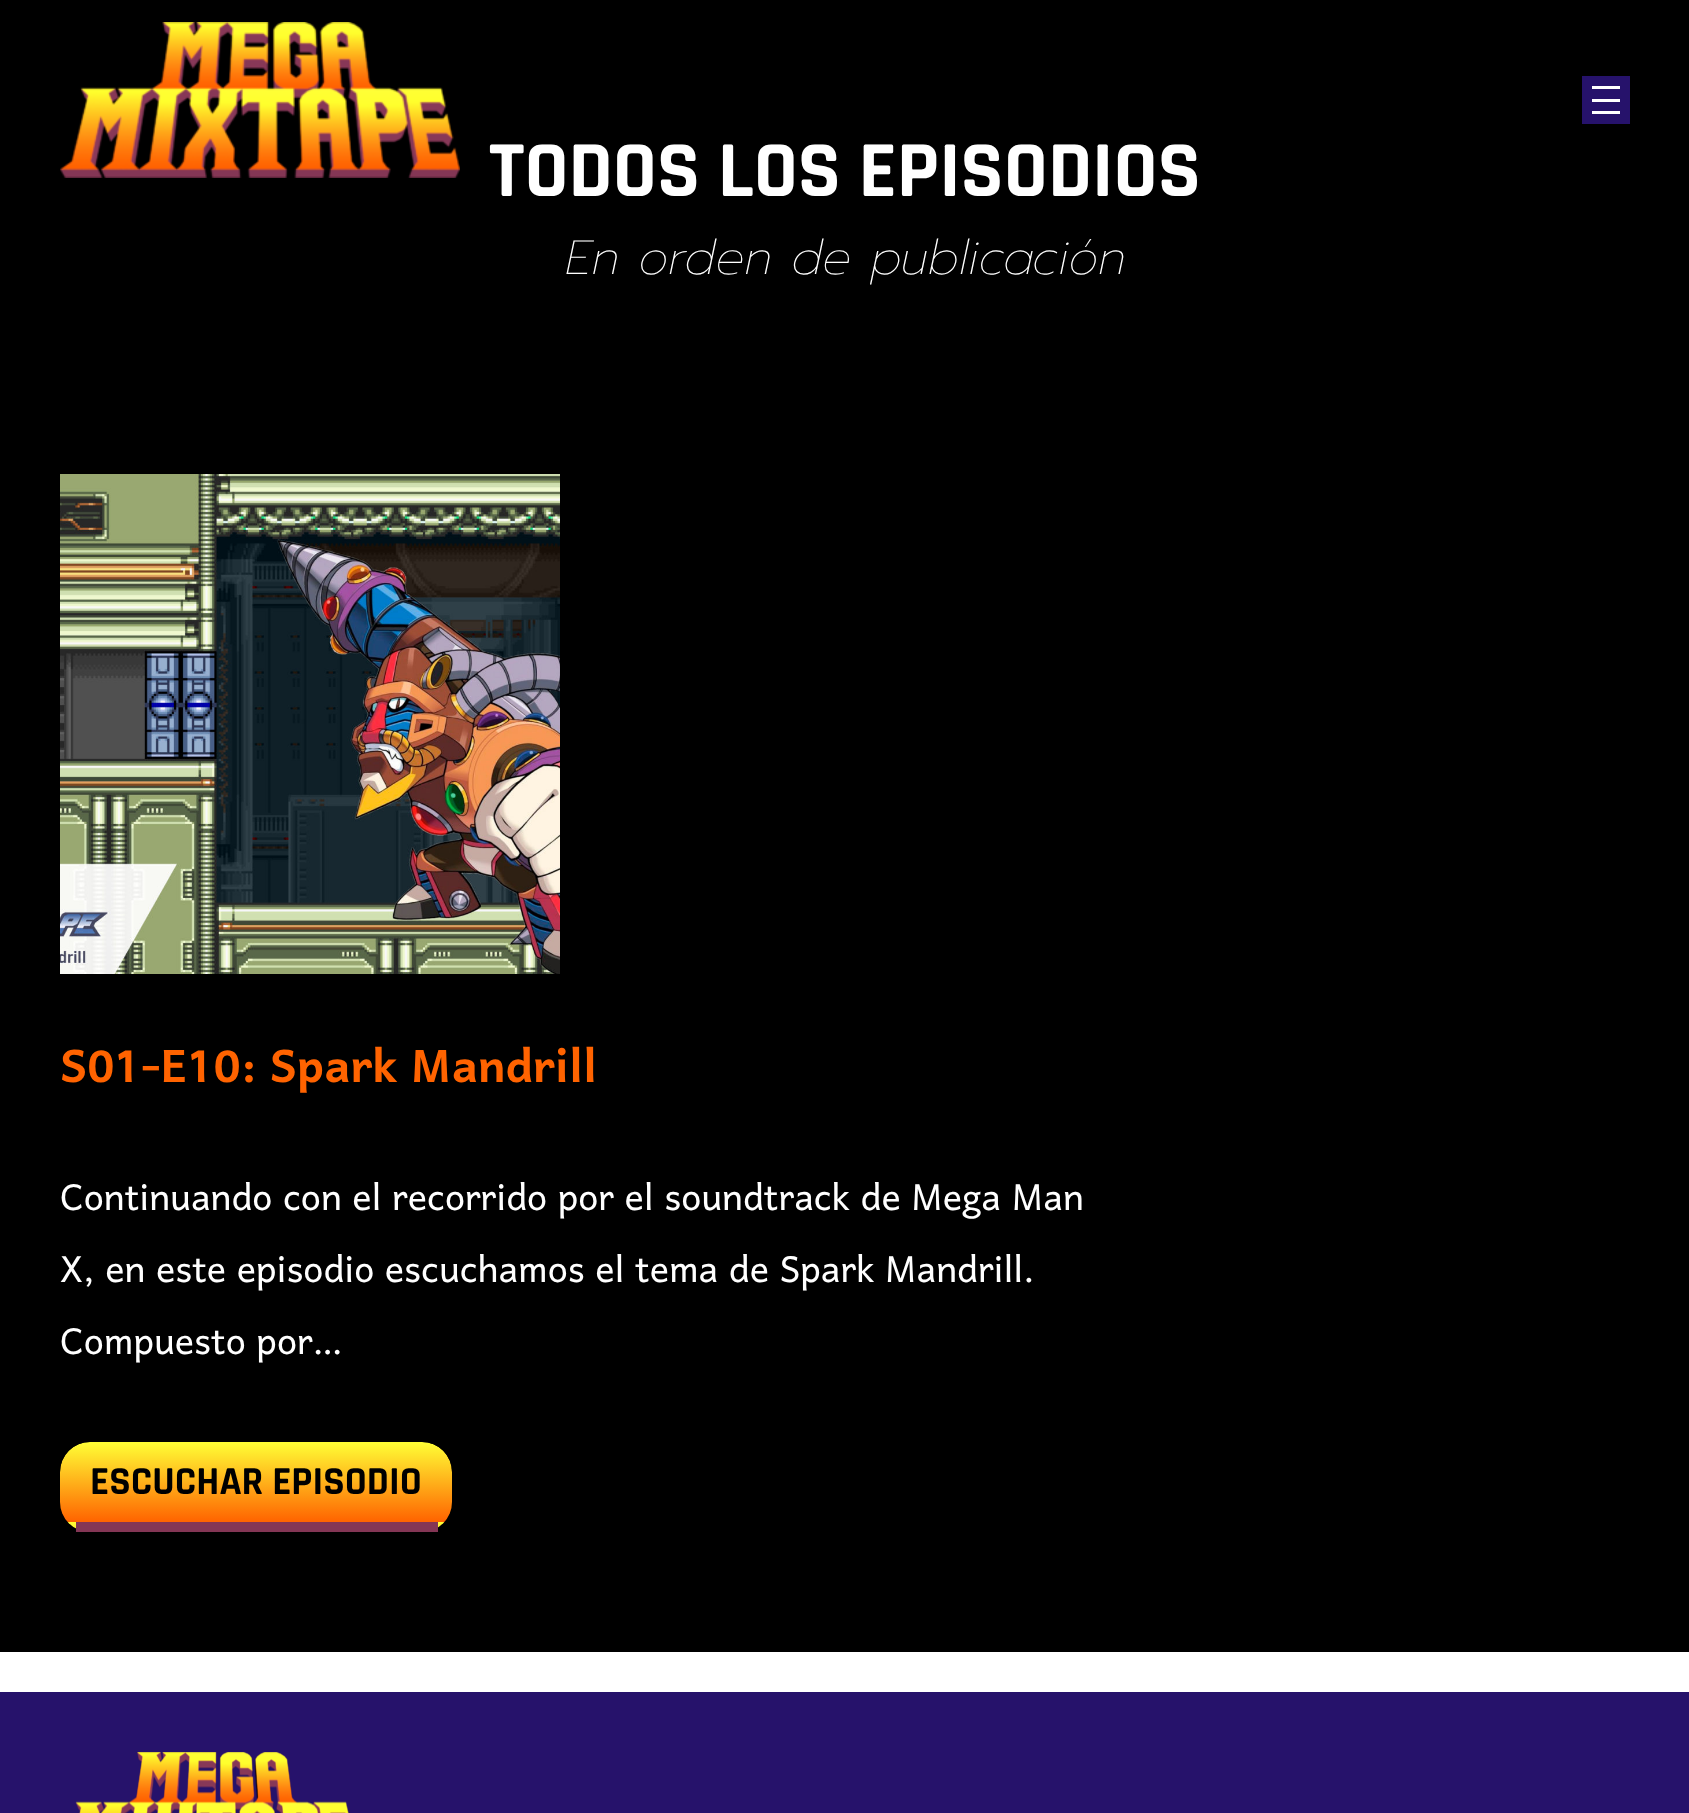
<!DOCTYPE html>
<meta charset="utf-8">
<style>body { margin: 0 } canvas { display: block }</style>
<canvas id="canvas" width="1689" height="1813"></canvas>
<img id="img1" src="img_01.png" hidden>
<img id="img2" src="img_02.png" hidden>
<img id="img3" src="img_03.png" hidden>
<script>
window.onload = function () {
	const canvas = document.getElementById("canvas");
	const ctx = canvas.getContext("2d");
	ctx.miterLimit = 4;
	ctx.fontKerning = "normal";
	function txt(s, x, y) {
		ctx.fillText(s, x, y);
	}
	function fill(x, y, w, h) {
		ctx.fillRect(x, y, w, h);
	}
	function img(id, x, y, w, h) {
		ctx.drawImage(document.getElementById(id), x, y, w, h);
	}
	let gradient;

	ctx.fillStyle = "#FFFFFF";
	fill(0, 0, 1689, 1813);
	ctx.fillStyle = "#000000";
	fill(0, 0, 1689, 1652);
	img("img1", 60, 22, 400, 156);
	ctx.fillStyle = "#26126B";
	fill(1582, 76, 48, 48);
	ctx.fillStyle = "#FFFFFF";
	fill(1592, 86, 28, 3);
	fill(1592, 99, 28, 3);
	fill(1592, 111, 28, 3);
	img("img2", 60, 474, 500, 500);
	ctx.save();
	ctx.beginPath();
	ctx.roundRect(60, 1442, 392, 90, 30);
	ctx.clip();
	gradient = ctx.createLinearGradient(256, 1522, 256, 1442);
	gradient.addColorStop(0, "#FF6300");
	gradient.addColorStop(1, "#FFFF35");
	ctx.fillStyle = gradient;
	ctx.beginPath();
	ctx.roundRect(60, 1442, 392, 80, [30, 30, 0, 0]);
	ctx.fill();
	gradient = ctx.createLinearGradient(256, 1602, 256, 1522);
	gradient.addColorStop(0, "#FF6300");
	gradient.addColorStop(1, "#FFFF35");
	ctx.fillStyle = gradient;
	fill(67, 1522, 378, 7);
	ctx.restore();
	ctx.fillStyle = "#843655";
	fill(76, 1522, 362, 10);
	ctx.fillStyle = "#26126B";
	fill(0, 1692, 1689, 121);
	img("img3", 75, 1752, 274, 61);
	ctx.font = "bold 80px Rajdhani";
	ctx.fillStyle = "#FFFFFF";
	txt("TODOS LOS EPISODIOS", 489, 196);
	ctx.font = "italic 100 48px Prompt";
	txt("En orden de publicación", 565, 274);
	ctx.font = "bold 60px Harmattan";
	ctx.fillStyle = "#FF6300";
	txt("S01-E10: Spark Mandrill", 60, 1082);
	ctx.font = "48px Harmattan";
	ctx.fillStyle = "#FFFFFF";
	txt("Continuando con el recorrido por el soundtrack de Mega Man", 60, 1210);
	txt("X, en este episodio escuchamos el tema de Spark Mandrill.", 60, 1282);
	txt("Compuesto por…", 60, 1354);
	ctx.font = "bold 40px Rajdhani";
	ctx.fillStyle = "#000000";
	txt("ESCUCHAR EPISODIO", 90, 1494);
};
</script>
